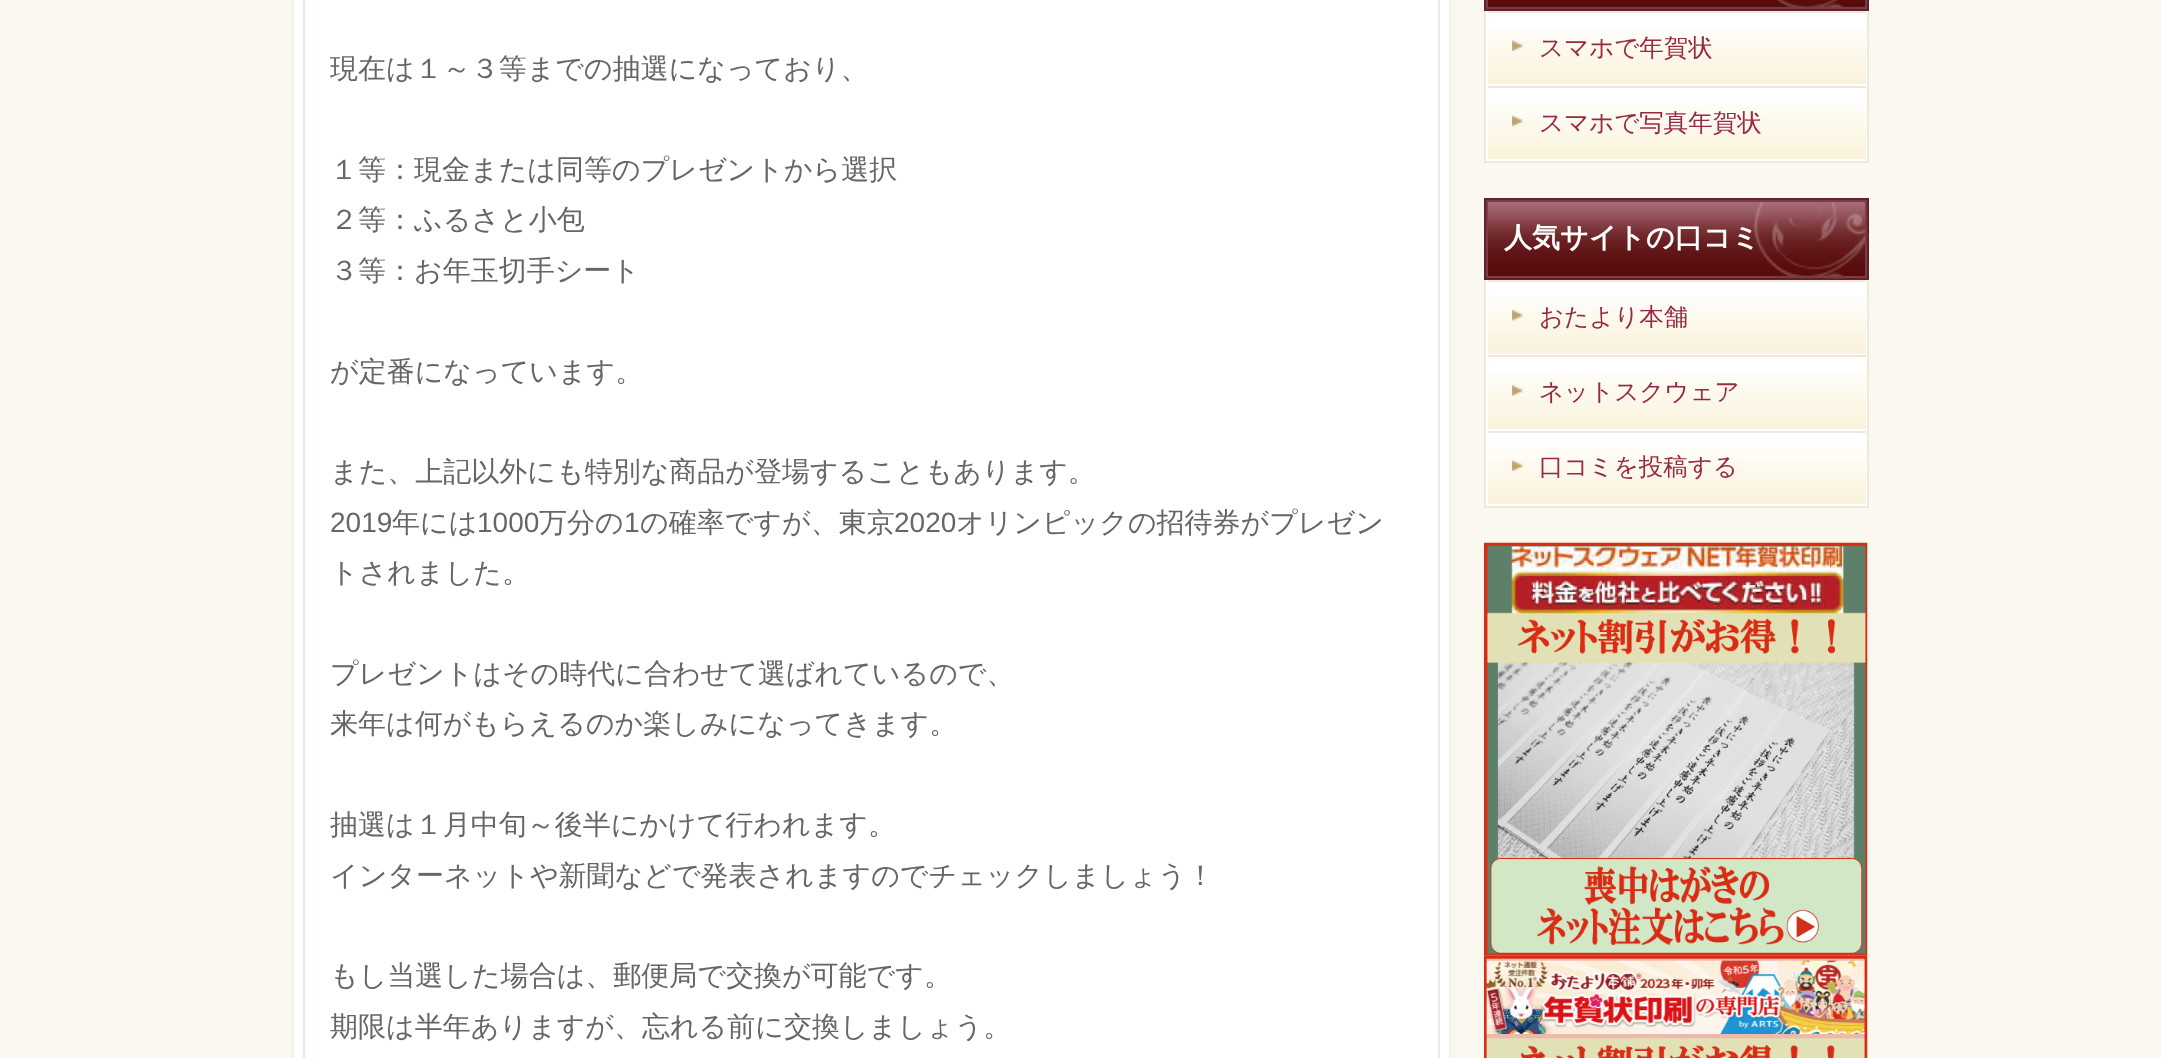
<!DOCTYPE html>
<meta charset="utf-8">
<style>body { margin: 0 } canvas { display: block }</style>
<canvas id="canvas" width="2161" height="1058"></canvas>
<img id="img1" src="img_01.png" hidden>
<img id="img2" src="img_02.png" hidden>
<img id="img3" src="img_03.png" hidden>
<img id="img4" src="img_04.png" hidden>
<img id="img5" src="img_05.png" hidden>
<img id="img6" src="img_06.png" hidden>
<img id="img7" src="img_07.png" hidden>
<img id="img8" src="img_08.png" hidden>
<img id="img9" src="img_09.png" hidden>
<img id="img10" src="img_10.png" hidden>
<img id="img11" src="img_11.png" hidden>
<img id="img12" src="img_12.png" hidden>
<script>
window.onload = function () {
	const canvas = document.getElementById("canvas");
	const ctx = canvas.getContext("2d");
	ctx.miterLimit = 4;
	ctx.fontKerning = "normal";
	function txt(s, x, y) {
		ctx.fillText(s, x, y);
	}
	function fill(x, y, w, h) {
		ctx.fillRect(x, y, w, h);
	}
	function img(id, x, y, w, h) {
		ctx.drawImage(document.getElementById(id), x, y, w, h);
	}

	ctx.fillStyle = "#FBF9EF";
	fill(0, 0, 2161, 1058);
	ctx.fillStyle = "rgba(206, 206, 206, 0.5)";
	ctx.filter = "blur(2.5px)";
	ctx.beginPath();
	ctx.rect(294, -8, 1155, 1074);
	ctx.fill();
	ctx.filter = "none";
	ctx.fillStyle = "#FFFFFF";
	fill(294, 0, 1155, 1058);
	ctx.strokeStyle = "#EEE9D9";
	ctx.lineWidth = 2;
	ctx.strokeRect(304, -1, 1135, 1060);
	ctx.fillStyle = "#590A0B";
	fill(1488, 0, 288, 7);
	ctx.strokeStyle = "#61222D";
	ctx.strokeRect(1485, -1, 383, 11);
	img("img1", 1776, 0, 89, 7);
	ctx.strokeStyle = "#773D47";
	ctx.strokeRect(1487, -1, 379, 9);
	ctx.fillStyle = "#FFFFFF";
	fill(1488, 13, 378, 90);
	ctx.fillStyle = "#EEE9D9";
	fill(1867, 11, 2, 152);
	fill(1484, 161, 385, 2);
	fill(1484, 11, 2, 152);
	img("img2", 1488, 27, 378, 57);
	fill(1486, 11, 381, 2);
	ctx.fillStyle = "#FFFFFF";
	fill(1866, 11, 1, 75);
	fill(1486, 11, 2, 75);
	img("img3", 1512, 40, 12, 11);
	img("img4", 1488, 103, 378, 56);
	ctx.fillStyle = "#EEE9D9";
	fill(1486, 86, 381, 2);
	ctx.fillStyle = "#FFFFFF";
	fill(1866, 86, 1, 75);
	fill(1486, 159, 381, 2);
	fill(1486, 86, 2, 75);
	img("img5", 1512, 115, 12, 12);
	ctx.strokeStyle = "#61222D";
	ctx.strokeRect(1485, 199, 383, 80);
	img("img6", 1485, 201, 383, 78);
	ctx.strokeStyle = "#773D47";
	ctx.strokeRect(1487, 201, 379, 76);
	fill(1488, 282, 378, 165);
	ctx.fillStyle = "#EEE9D9";
	fill(1867, 280, 2, 228);
	fill(1484, 506, 385, 2);
	fill(1484, 280, 2, 228);
	img("img7", 1488, 297, 378, 57);
	fill(1486, 280, 381, 2);
	ctx.fillStyle = "#FFFFFF";
	fill(1866, 280, 1, 75);
	fill(1486, 280, 2, 75);
	img("img8", 1512, 310, 12, 11);
	img("img9", 1488, 372, 378, 57);
	ctx.fillStyle = "#EEE9D9";
	fill(1486, 355, 381, 2);
	ctx.fillStyle = "#FFFFFF";
	fill(1866, 355, 1, 76);
	fill(1486, 355, 2, 76);
	img("img10", 1512, 385, 12, 11);
	img("img2", 1488, 447, 378, 57);
	ctx.fillStyle = "#EEE9D9";
	fill(1486, 431, 381, 2);
	ctx.fillStyle = "#FFFFFF";
	fill(1866, 431, 1, 75);
	fill(1486, 504, 381, 2);
	fill(1486, 431, 2, 75);
	img("img3", 1512, 460, 12, 11);
	img("img11", 1484, 542, 384, 414);
	img("img12", 1484, 955, 384, 103);
	ctx.font = "500 28px WenQuanYi Zen Hei";
	ctx.fillStyle = "#666666";
	txt("現在は１～３等までの抽選になっており、", 330, 78);
	txt("１等：現金または同等のプレゼントから選択", 330, 179);
	txt("２等：ふるさと小包", 330, 229);
	txt("３等：お年玉切手シート", 330, 280);
	txt("が定番になっています。", 330, 381);
	txt("また、上記以外にも特別な商品が登場することもあります。", 330, 481);
	ctx.font = "28px Liberation Sans";
	txt("2019", 330, 532);
	ctx.font = "500 28px WenQuanYi Zen Hei";
	txt("年には", 392, 532);
	ctx.font = "28px Liberation Sans";
	txt("1000", 477, 532);
	ctx.font = "500 28px WenQuanYi Zen Hei";
	txt("万分の", 539, 532);
	ctx.font = "28px Liberation Sans";
	txt("1", 624, 532);
	ctx.font = "500 28px WenQuanYi Zen Hei";
	txt("の確率ですが、東京", 640, 532);
	ctx.font = "28px Liberation Sans";
	txt("2020", 894, 532);
	ctx.font = "500 28px WenQuanYi Zen Hei";
	txt("オリンピックの招待券がプレゼン", 956, 532);
	txt("トされました。", 330, 582);
	txt("プレゼントはその時代に合わせて選ばれているので、", 330, 683);
	txt("来年は何がもらえるのか楽しみになってきます。", 330, 733);
	txt("抽選は１月中旬～後半にかけて行われます。", 330, 834);
	txt("インターネットや新聞などで発表されますのでチェックしましょう！", 330, 885);
	txt("もし当選した場合は、郵便局で交換が可能です。", 330, 985);
	txt("期限は半年ありますが、忘れる前に交換しましょう。", 330, 1036);
	ctx.font = "500 24.5px WenQuanYi Zen Hei";
	ctx.fillStyle = "#972941";
	txt("スマホで年賀状", 1539, 56);
	txt("スマホで写真年賀状", 1539, 131);
	ctx.font = "bold 28px WenQuanYi Zen Hei";
	ctx.fillStyle = "#FFFFFF";
	txt("人気サイトの口コミ", 1504, 247);
	ctx.font = "500 24.5px WenQuanYi Zen Hei";
	ctx.fillStyle = "#972941";
	txt("おたより本舗", 1539, 325);
	txt("ネットスクウェア", 1539, 400);
	txt("口コミを投稿する", 1539, 475);
};
</script>
